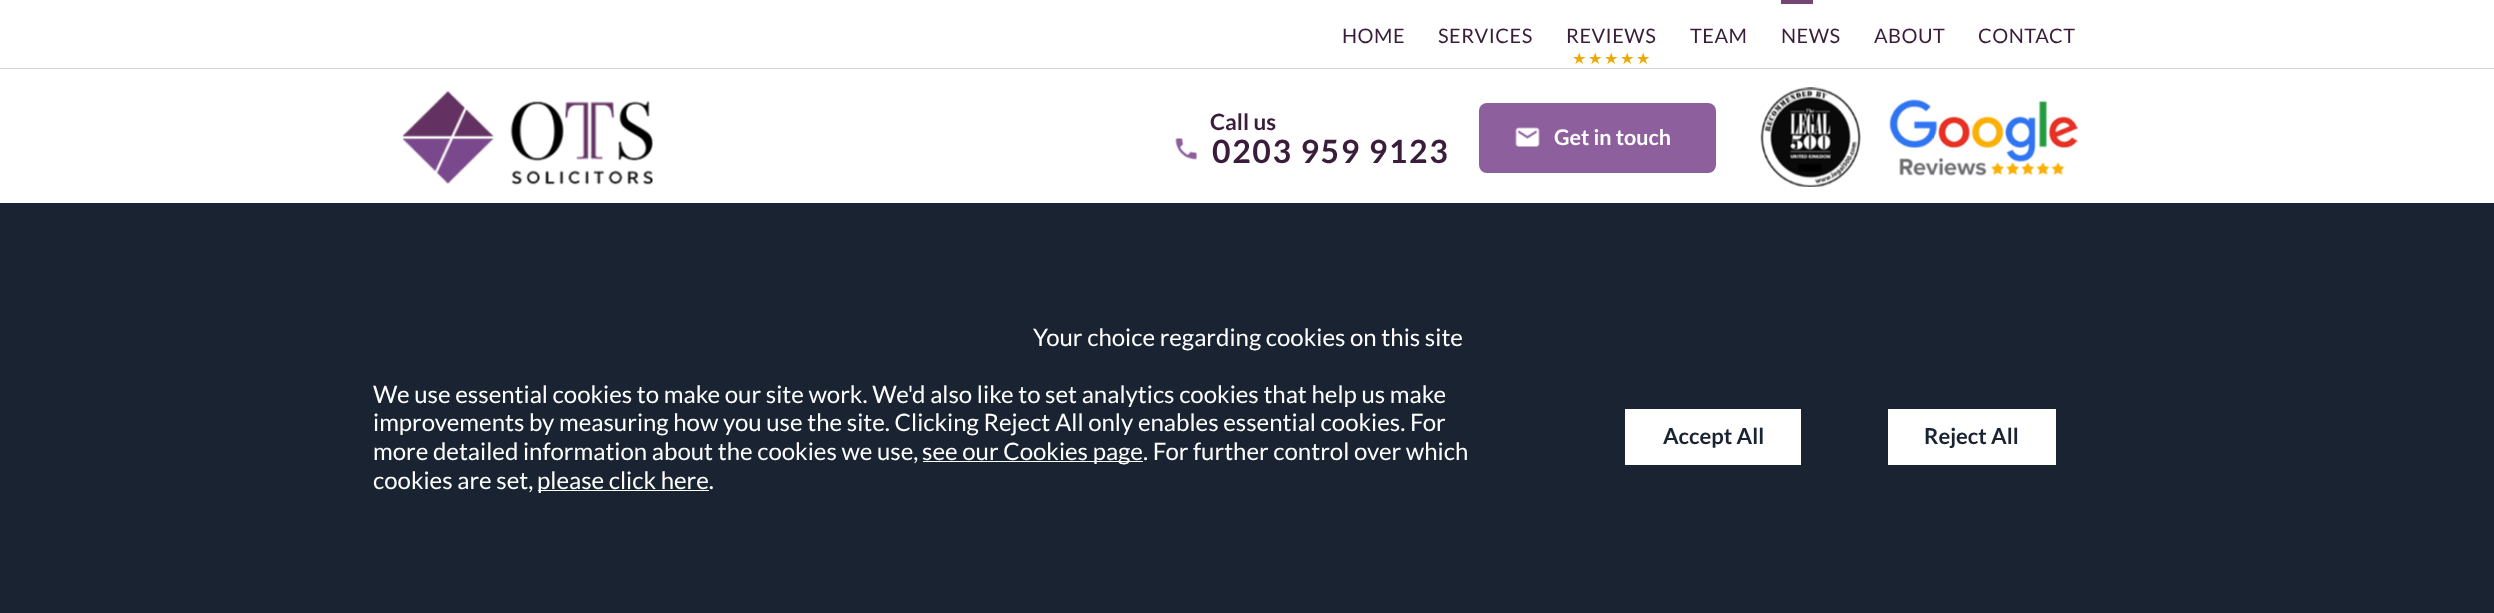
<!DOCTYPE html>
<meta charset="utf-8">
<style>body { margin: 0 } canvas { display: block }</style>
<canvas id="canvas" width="2494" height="613"></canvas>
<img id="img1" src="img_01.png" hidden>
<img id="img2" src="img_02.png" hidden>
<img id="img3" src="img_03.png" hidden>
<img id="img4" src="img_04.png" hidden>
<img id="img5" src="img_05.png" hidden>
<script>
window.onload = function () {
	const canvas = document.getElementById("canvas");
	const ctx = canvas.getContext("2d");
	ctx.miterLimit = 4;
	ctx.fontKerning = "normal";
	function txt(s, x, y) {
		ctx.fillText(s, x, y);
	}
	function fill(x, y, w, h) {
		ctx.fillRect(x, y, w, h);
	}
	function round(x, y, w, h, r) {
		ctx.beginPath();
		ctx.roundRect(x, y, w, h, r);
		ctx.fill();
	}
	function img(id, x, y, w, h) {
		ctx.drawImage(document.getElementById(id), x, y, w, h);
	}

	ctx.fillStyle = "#FFFFFF";
	fill(0, 0, 2494, 613);
	ctx.fillStyle = "#D2D6DC";
	fill(0, 68, 2494, 1);
	ctx.fillStyle = "#754575";
	fill(1781, 0, 32, 4);
	img("img1", 403, 90, 250, 95);
	img("img2", 1175, 138, 23, 22);
	ctx.fillStyle = "#8D609D";
	round(1479, 103, 237, 70, 8);
	img("img3", 1515, 127, 25, 20);
	img("img4", 1760, 87, 101, 100);
	img("img5", 1889, 99, 189, 77);
	ctx.fillStyle = "#192331";
	fill(0, 203, 2494, 410);
	ctx.fillStyle = "#FFFFFF";
	fill(923, 461, 220, 1);
	fill(538, 490, 171, 1);
	fill(1625, 409, 176, 56);
	fill(1888, 409, 168, 56);
	ctx.letterSpacing = "0.5px";
	ctx.font = "20px Lato";
	ctx.fillStyle = "#3A1D3A";
	txt("HOME", 1342, 43);
	txt("SERVICES", 1438, 43);
	txt("REVIEWS", 1566, 43);
	ctx.letterSpacing = "0px";
	ctx.font = "16px DejaVu Sans";
	ctx.fillStyle = "#EFA800";
	txt("★", 1572, 64);
	txt("★", 1588, 64);
	txt("★", 1604, 64);
	txt("★", 1620, 64);
	txt("★", 1636, 64);
	ctx.letterSpacing = "0.5px";
	ctx.font = "20px Lato";
	ctx.fillStyle = "#3A1D3A";
	txt("TEAM", 1690, 43);
	txt("NEWS", 1781, 43);
	txt("ABOUT", 1874, 43);
	txt("CONTACT", 1978, 43);
	ctx.letterSpacing = "0px";
	ctx.font = "bold 22.5px Lato";
	txt("Call us", 1210, 130);
	ctx.letterSpacing = "1.6px";
	ctx.font = "bold 32px Lato";
	txt("0203 959 9123", 1212, 163);
	ctx.letterSpacing = "0px";
	ctx.font = "bold 21.5px Lato";
	ctx.fillStyle = "#FFFFFF";
	txt("Get in touch", 1554, 145);
	ctx.font = "24px Lato";
	txt("Your choice regarding cookies on this site", 1033, 346);
	txt("We use essential cookies to make our site work. We'd also like to set analytics cookies that help us make", 373, 403);
	txt("improvements by measuring how you use the site. Clicking Reject All only enables essential cookies. For", 373, 431);
	txt("more detailed information about the cookies we use,", 373, 460);
	txt("see our Cookies page. For further control over which", 922, 460);
	txt("cookies are set,", 373, 489);
	txt("please click here.", 537, 489);
	ctx.font = "bold 22px Lato";
	ctx.fillStyle = "#192331";
	txt("Accept All", 1663, 444);
	txt("Reject All", 1924, 444);
};
</script>
